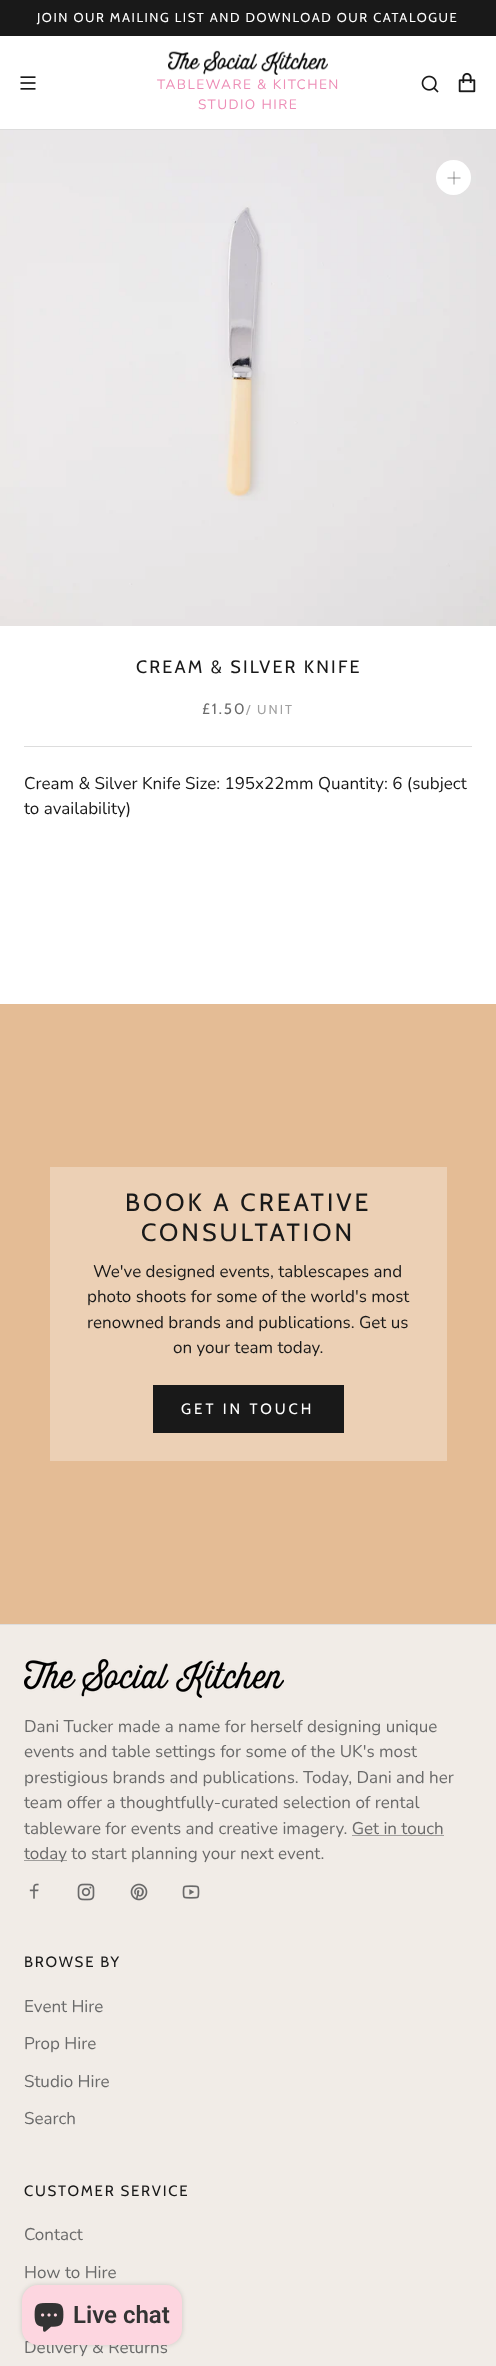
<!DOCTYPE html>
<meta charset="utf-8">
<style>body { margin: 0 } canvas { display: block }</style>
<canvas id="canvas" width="496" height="2366"></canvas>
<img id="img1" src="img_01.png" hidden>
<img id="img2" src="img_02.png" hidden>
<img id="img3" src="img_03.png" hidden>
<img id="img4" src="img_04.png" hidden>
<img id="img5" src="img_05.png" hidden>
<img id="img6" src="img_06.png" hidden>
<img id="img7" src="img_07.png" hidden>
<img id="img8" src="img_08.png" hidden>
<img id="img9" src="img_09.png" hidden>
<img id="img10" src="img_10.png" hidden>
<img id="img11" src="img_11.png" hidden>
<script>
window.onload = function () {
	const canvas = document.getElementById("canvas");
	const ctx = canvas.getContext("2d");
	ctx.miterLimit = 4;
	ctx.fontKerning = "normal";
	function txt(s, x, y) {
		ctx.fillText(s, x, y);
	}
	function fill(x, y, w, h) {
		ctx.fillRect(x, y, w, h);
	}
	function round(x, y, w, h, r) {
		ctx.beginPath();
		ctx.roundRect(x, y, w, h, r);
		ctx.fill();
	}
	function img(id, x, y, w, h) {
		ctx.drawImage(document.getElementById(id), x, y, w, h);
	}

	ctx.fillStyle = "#FFFFFF";
	fill(0, 0, 496, 2366);
	ctx.fillStyle = "#191919";
	fill(0, 0, 496, 36);
	ctx.fillStyle = "#DDDDDD";
	fill(0, 129, 496, 1);
	img("img1", 20, 76, 16, 14);
	img("img2", 168, 50, 160, 25);
	img("img3", 421, 75, 18, 18);
	img("img4", 458, 72, 18, 21);
	img("img5", 0, 130, 496, 496);
	ctx.fillStyle = "#FFFFFF";
	ctx.beginPath();
	ctx.arc(453.5, 177.5, 17.5, 0, Math.PI * 2);
	ctx.fill();
	ctx.beginPath();
	ctx.moveTo(454, 172);
	ctx.lineTo(454, 184);
	ctx.strokeStyle = "#8C8C8C";
	ctx.lineWidth = 0.9;
	ctx.lineCap = "square";
	ctx.stroke();
	ctx.beginPath();
	ctx.moveTo(448, 178);
	ctx.lineTo(460, 178);
	ctx.strokeStyle = "rgba(25, 25, 25, 0.5)";
	ctx.stroke();
	ctx.fillStyle = "#DDDDDD";
	fill(24, 746, 448, 1);
	ctx.fillStyle = "#E4BC95";
	fill(0, 1004, 496, 620);
	ctx.fillStyle = "#ECD0B5";
	fill(50, 1167, 397, 294);
	ctx.strokeStyle = "#191919";
	ctx.lineWidth = 1;
	ctx.strokeRect(153.5, 1385.5, 190, 47);
	ctx.fillStyle = "#191919";
	fill(154, 1386, 189, 46);
	ctx.fillStyle = "#F1ECE7";
	fill(0, 1625, 496, 741);
	ctx.fillStyle = "#DDDDDD";
	fill(0, 1624, 496, 1);
	img("img6", 24, 1659, 260, 39);
	ctx.fillStyle = "#A09E9C";
	fill(24, 1860, 43, 1);
	img("img7", 29, 1883, 10, 16);
	img("img8", 77, 1883, 18, 18);
	img("img9", 130, 1883, 18, 18);
	img("img10", 182, 1885, 18, 14);
	ctx.fillStyle = "rgba(0, 0, 0, 0.15)";
	ctx.filter = "blur(2.5px)";
	ctx.beginPath();
	ctx.roundRect(22, 2285, 160, 60, 16);
	ctx.fill();
	ctx.filter = "none";
	ctx.letterSpacing = "1.55px";
	ctx.font = "13px Cabin";
	ctx.fillStyle = "#FFFFFF";
	txt("JOIN OUR MAILING LIST AND DOWNLOAD OUR CATALOGUE", 37, 22);
	ctx.letterSpacing = "1.4px";
	ctx.font = "13.6px Nunito";
	ctx.fillStyle = "#ED8DB6";
	txt("TABLEWARE & KITCHEN", 157, 89);
	txt("STUDIO HIRE", 198, 109);
	ctx.letterSpacing = "2.2px";
	ctx.font = "18px Cabin";
	ctx.fillStyle = "#191919";
	txt("CREAM & SILVER KNIFE", 136, 673);
	ctx.letterSpacing = "2px";
	ctx.font = "15px Cabin";
	ctx.fillStyle = "#6A6A6A";
	txt("£1.50", 202, 714);
	ctx.font = "13px Cabin";
	ctx.fillStyle = "#A1A1A1";
	txt("/ UNIT", 246, 714);
	ctx.letterSpacing = "0px";
	ctx.font = "17px Nunito";
	ctx.fillStyle = "#191919";
	txt("Cream & Silver Knife Size: 195x22mm Quantity: 6 (subject", 24, 789);
	txt("to availability)", 24, 814);
	ctx.letterSpacing = "3px";
	ctx.font = "25px Cabin";
	txt("BOOK A CREATIVE", 125, 1211);
	txt("CONSULTATION", 141, 1241);
	ctx.letterSpacing = "0px";
	ctx.font = "17px Nunito";
	txt("We've designed events, tablescapes and", 93, 1277);
	txt("photo shoots for some of the world's most", 87, 1302);
	txt("renowned brands and publications. Get us", 87, 1328);
	txt("on your team today.", 173, 1353);
	ctx.letterSpacing = "3px";
	ctx.font = "15px Cabin";
	ctx.fillStyle = "#FFFFFF";
	txt("GET IN TOUCH", 181, 1414);
	ctx.letterSpacing = "0px";
	ctx.font = "17px Nunito";
	ctx.fillStyle = "#6A6A6A";
	txt("Dani Tucker made a name for herself designing unique", 24, 1732);
	txt("events and table settings for some of the UK's most", 24, 1757);
	txt("prestigious brands and publications. Today, Dani and her", 24, 1783);
	txt("team offer a thoughtfully-curated selection of rental", 24, 1808);
	txt("tableware for events and creative imagery. Get in touch", 24, 1834);
	txt("today to start planning your next event.", 24, 1859);
	ctx.fillStyle = "#A09E9C";
	fill(352, 1835, 92, 1);
	ctx.letterSpacing = "1.75px";
	ctx.font = "15px Cabin";
	ctx.fillStyle = "#191919";
	txt("BROWSE BY", 24, 1967);
	ctx.letterSpacing = "0px";
	ctx.font = "17px Nunito";
	ctx.fillStyle = "#6A6A6A";
	txt("Event Hire", 24, 2012);
	txt("Prop Hire", 24, 2049);
	txt("Studio Hire", 24, 2087);
	txt("Search", 24, 2124);
	ctx.letterSpacing = "1.75px";
	ctx.font = "15px Cabin";
	ctx.fillStyle = "#191919";
	txt("CUSTOMER SERVICE", 24, 2196);
	ctx.letterSpacing = "0px";
	ctx.font = "17px Nunito";
	ctx.fillStyle = "#6A6A6A";
	txt("Contact", 24, 2240);
	txt("How to Hire", 24, 2278);
	txt("Delivery & Returns", 24, 2353);
	ctx.fillStyle = "#FDD6E0";
	round(22, 2285, 160, 60, 16);
	img("img11", 34, 2303, 30, 29);
	ctx.font = "600 24px Roboto";
	ctx.fillStyle = "#333333";
	txt("Live chat", 73, 2323);
};
</script>
